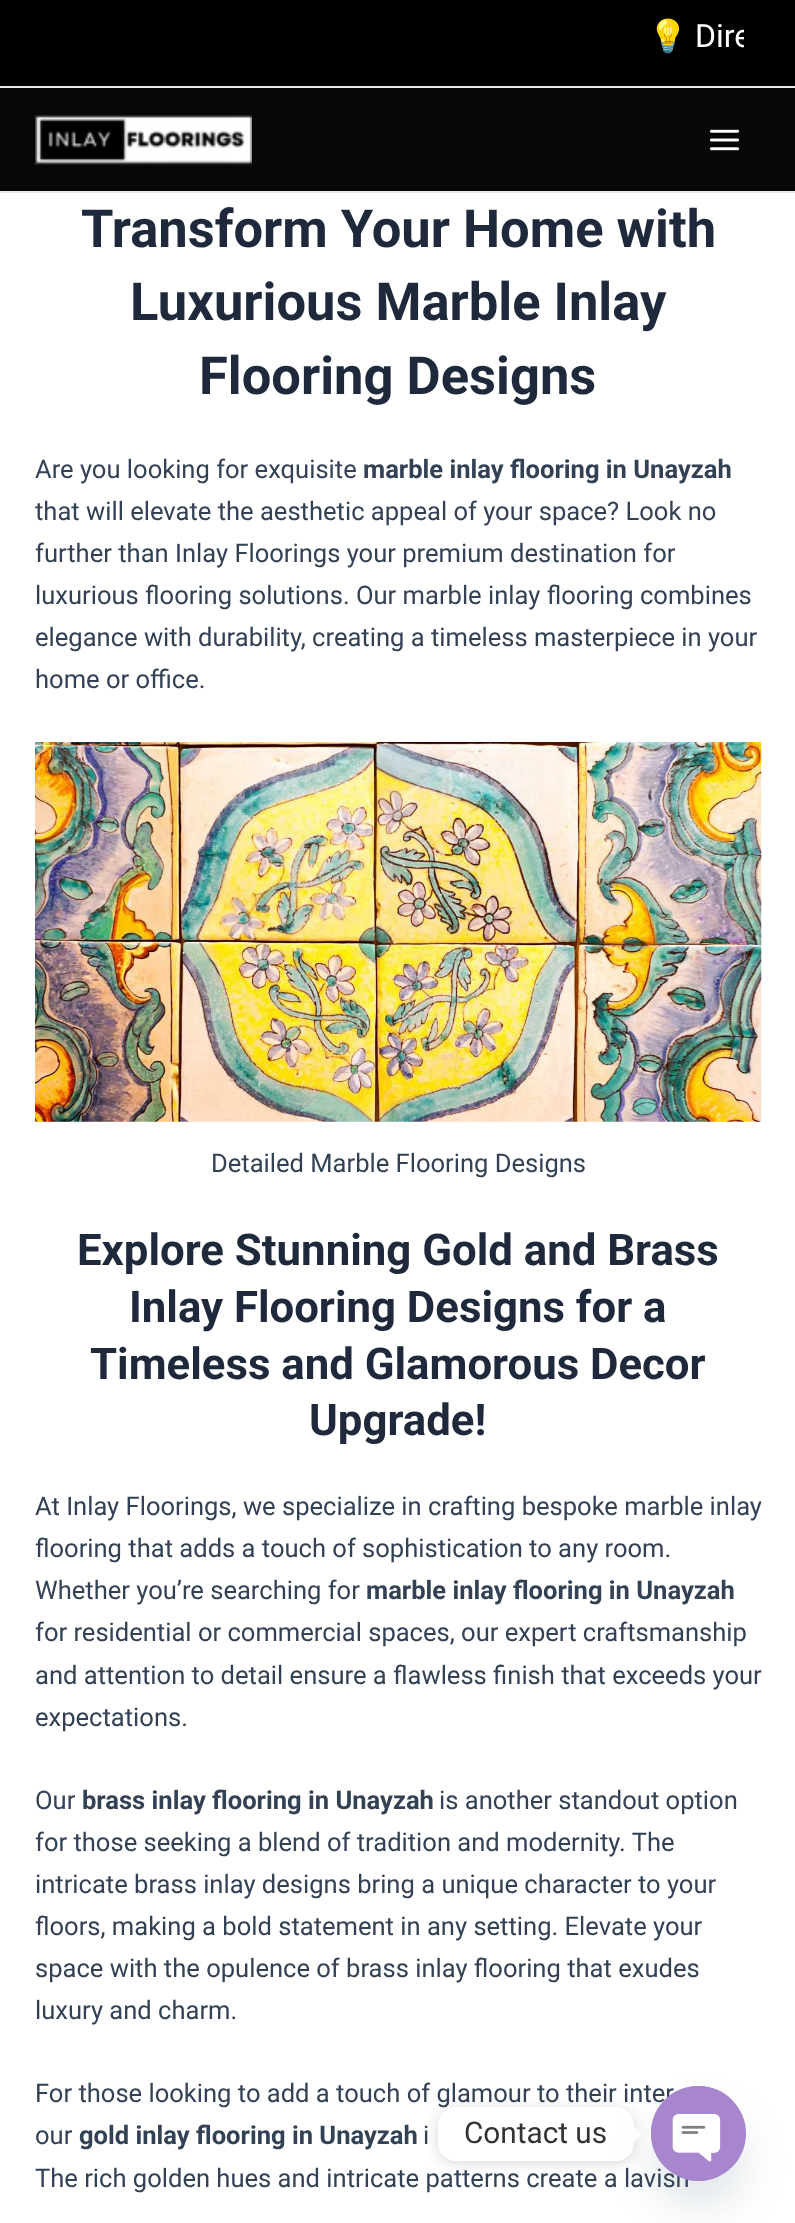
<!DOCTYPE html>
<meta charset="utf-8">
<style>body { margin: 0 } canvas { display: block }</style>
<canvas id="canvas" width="795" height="2223"></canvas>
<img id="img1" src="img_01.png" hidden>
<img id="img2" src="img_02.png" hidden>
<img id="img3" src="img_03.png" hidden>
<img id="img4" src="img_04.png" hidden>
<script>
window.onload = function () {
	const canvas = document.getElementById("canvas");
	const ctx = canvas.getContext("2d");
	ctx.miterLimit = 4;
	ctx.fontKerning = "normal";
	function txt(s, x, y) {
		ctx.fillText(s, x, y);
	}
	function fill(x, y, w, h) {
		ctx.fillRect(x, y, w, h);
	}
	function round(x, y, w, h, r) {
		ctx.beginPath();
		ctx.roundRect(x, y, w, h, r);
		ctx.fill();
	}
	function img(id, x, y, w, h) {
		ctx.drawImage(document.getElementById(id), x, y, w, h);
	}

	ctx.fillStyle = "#FFFFFF";
	fill(0, 0, 795, 2223);
	ctx.fillStyle = "#000000";
	fill(0, 0, 795, 86);
	ctx.fillStyle = "#EAEAEA";
	fill(0, 86, 795, 2);
	ctx.fillStyle = "#070707";
	fill(0, 88, 795, 103);
	ctx.fillStyle = "#EAEAEA";
	fill(0, 191, 795, 2);
	img("img1", 35, 115, 217, 50);
	img("img2", 709, 129, 31, 22);
	img("img3", 35, 742, 727, 380);
	ctx.fillStyle = "rgba(0, 0, 0, 0.15)";
	ctx.filter = "blur(7px)";
	ctx.beginPath();
	ctx.roundRect(438, 2109, 196, 54, 18);
	ctx.fill();
	ctx.filter = "none";
	ctx.font = "32px Noto Color Emoji";
	ctx.fillStyle = "#FFFFFF";
	txt("💡", 648, 47);
	ctx.save();
	ctx.beginPath();
	ctx.rect(53, 16, 691, 42);
	ctx.clip();
	ctx.font = "32px Roboto";
	txt("Dire", 695, 47);
	ctx.restore();
	ctx.font = "bold 52.5px Roboto";
	ctx.fillStyle = "#1E293B";
	txt("Transform Your Home with", 81, 247);
	txt("Luxurious Marble Inlay", 130, 320);
	txt("Flooring Designs", 199, 394);
	ctx.font = "25.55px Roboto";
	ctx.fillStyle = "#334155";
	txt("Are you looking for exquisite", 35, 478);
	ctx.font = "bold 25.55px Roboto";
	txt("marble inlay flooring in Unayzah", 363, 478);
	ctx.font = "25.55px Roboto";
	txt("that will elevate the aesthetic appeal of your space? Look no", 35, 520);
	txt("further than Inlay Floorings your premium destination for", 35, 562);
	txt("luxurious flooring solutions. Our marble inlay flooring combines", 35, 604);
	txt("elegance with durability, creating a timeless masterpiece in your", 35, 646);
	txt("home or office.", 35, 688);
	txt("Detailed Marble Flooring Designs", 211, 1172);
	ctx.font = "bold 43.75px Roboto";
	ctx.fillStyle = "#1E293B";
	txt("Explore Stunning Gold and Brass", 77, 1265);
	txt("Inlay Flooring Designs for a", 129, 1322);
	txt("Timeless and Glamorous Decor", 90, 1379);
	txt("Upgrade!", 309, 1435);
	ctx.font = "25.55px Roboto";
	ctx.fillStyle = "#334155";
	txt("At Inlay Floorings, we specialize in crafting bespoke marble inlay", 35, 1515);
	txt("flooring that adds a touch of sophistication to any room.", 35, 1557);
	txt("Whether you’re searching for", 35, 1599);
	ctx.font = "bold 25.55px Roboto";
	txt("marble inlay flooring in Unayzah", 366, 1599);
	ctx.font = "25.55px Roboto";
	txt("for residential or commercial spaces, our expert craftsmanship", 35, 1641);
	txt("and attention to detail ensure a flawless finish that exceeds your", 35, 1684);
	txt("expectations.", 35, 1726);
	txt("Our", 35, 1809);
	ctx.font = "bold 25.55px Roboto";
	txt("brass inlay flooring in Unayzah", 82, 1809);
	ctx.font = "25.55px Roboto";
	txt("is another standout option", 439, 1809);
	txt("for those seeking a blend of tradition and modernity. The", 35, 1851);
	txt("intricate brass inlay designs bring a unique character to your", 35, 1893);
	txt("floors, making a bold statement in any setting. Elevate your", 35, 1935);
	txt("space with the opulence of brass inlay flooring that exudes", 35, 1977);
	txt("luxury and charm.", 35, 2019);
	txt("For those looking to add a touch of glamour to their inter", 35, 2102);
	txt("our", 35, 2144);
	ctx.font = "bold 25.55px Roboto";
	txt("gold inlay flooring in Unayzah", 79, 2144);
	ctx.font = "25.55px Roboto";
	txt("i", 423, 2144);
	txt("The rich golden hues and intricate patterns create a lavish", 35, 2187);
	ctx.fillStyle = "#FFFFFF";
	round(438, 2107, 196, 54, 18);
	ctx.font = "29.75px Roboto";
	ctx.fillStyle = "#333333";
	txt("Contact us", 464, 2143);
	ctx.fillStyle = "#FFFFFF";
	ctx.beginPath();
	ctx.moveTo(633.5, 2143);
	ctx.lineTo(633.5, 2125.5);
	ctx.lineTo(642, 2134);
	ctx.closePath();
	ctx.fill();
	ctx.fillStyle = "rgba(73, 104, 126, 0.16)";
	ctx.filter = "blur(21px)";
	ctx.beginPath();
	ctx.roundRect(651, 2114, 95, 95, 47.5);
	ctx.fill();
	ctx.filter = "none";
	ctx.fillStyle = "#A886CD";
	ctx.beginPath();
	ctx.arc(698.5, 2133.5, 47.5, 0, Math.PI * 2);
	ctx.fill();
	img("img4", 651, 2086, 70, 76);
};
</script>
